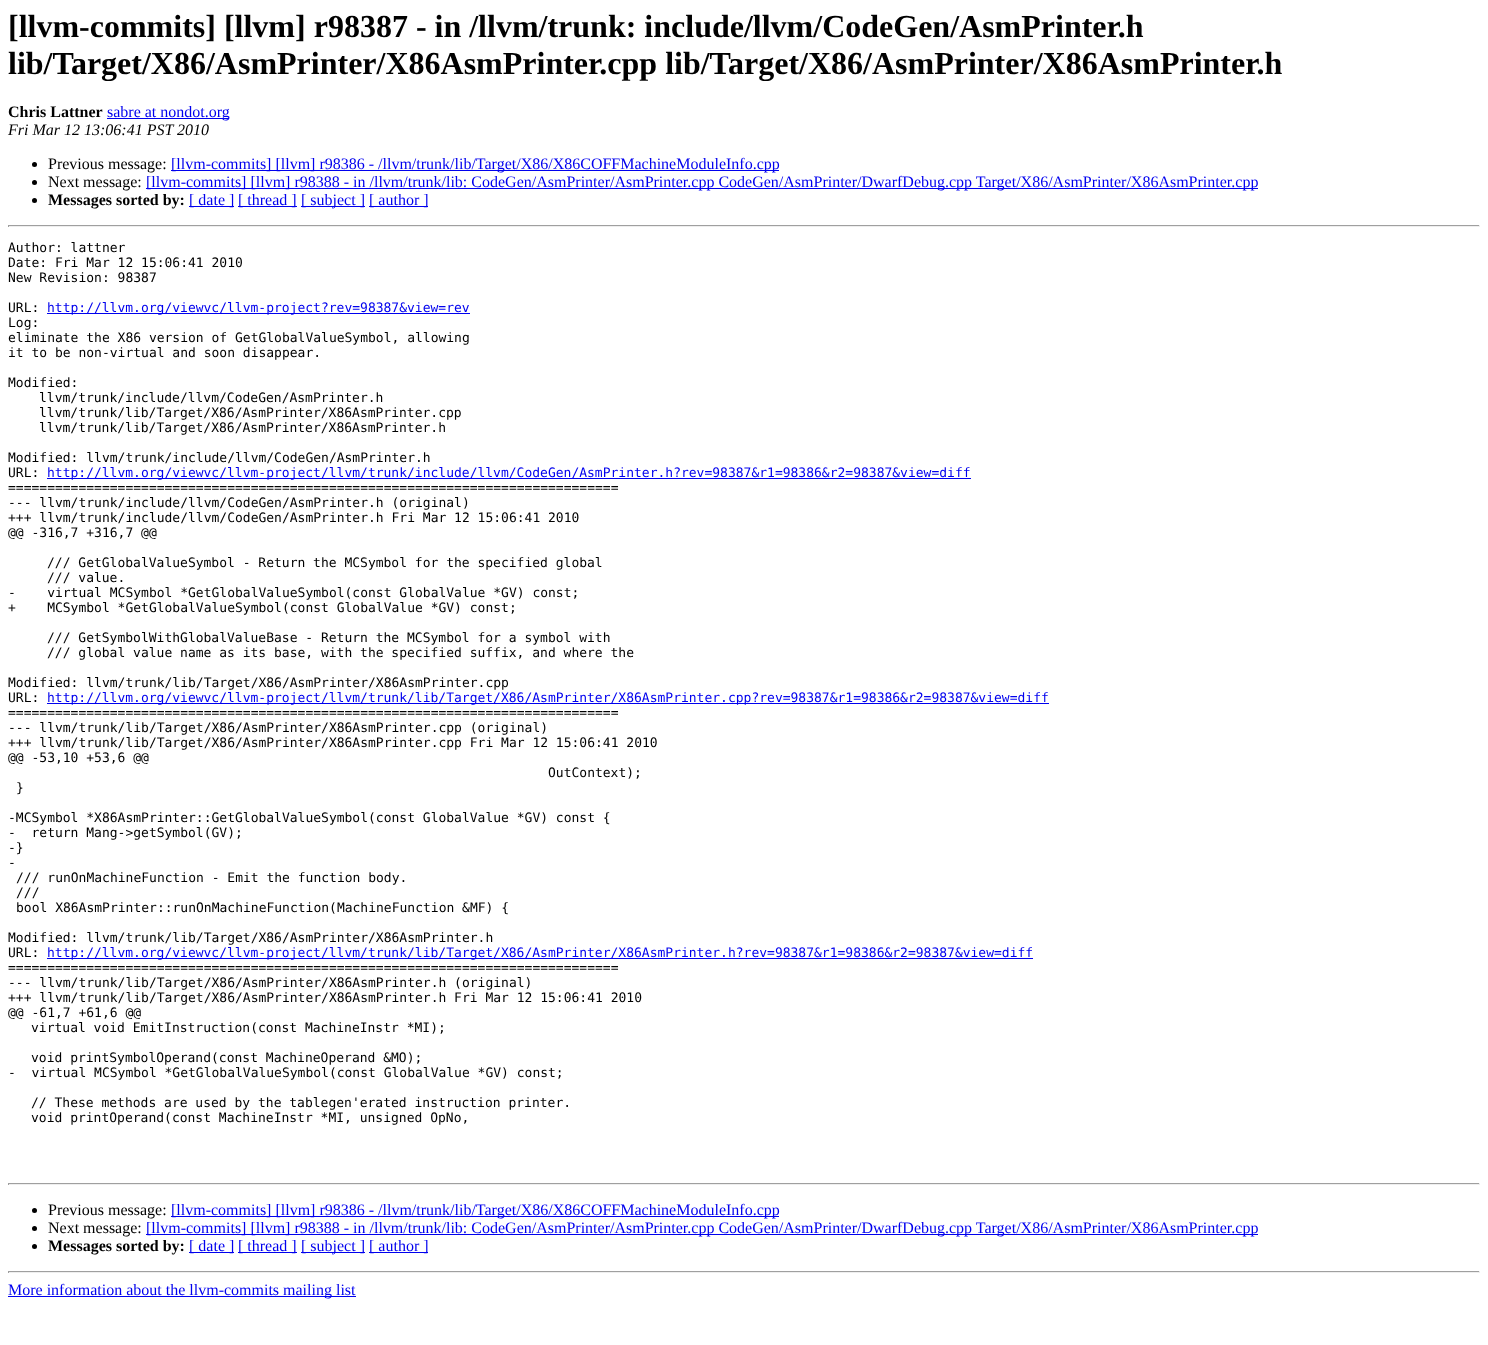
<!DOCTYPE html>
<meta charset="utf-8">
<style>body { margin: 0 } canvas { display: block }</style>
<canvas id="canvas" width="1488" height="1345"></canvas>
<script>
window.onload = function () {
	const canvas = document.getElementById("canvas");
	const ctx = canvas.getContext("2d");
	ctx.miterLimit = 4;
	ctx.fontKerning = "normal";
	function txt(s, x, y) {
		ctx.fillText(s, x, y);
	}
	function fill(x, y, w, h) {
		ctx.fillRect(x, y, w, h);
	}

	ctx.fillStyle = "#FFFFFF";
	fill(0, 0, 1488, 1345);
	ctx.fillStyle = "#0000EE";
	fill(107, 118, 122, 1);
	ctx.fillStyle = "#000000";
	ctx.beginPath();
	ctx.arc(34.5, 164.5, 2.5, 0, Math.PI * 2);
	ctx.fill();
	ctx.fillStyle = "#0000EE";
	fill(171, 170, 608, 1);
	ctx.fillStyle = "#000000";
	ctx.beginPath();
	ctx.arc(34.5, 182.5, 2.5, 0, Math.PI * 2);
	ctx.fill();
	ctx.fillStyle = "#0000EE";
	fill(146, 188, 1112, 1);
	ctx.fillStyle = "#000000";
	ctx.beginPath();
	ctx.arc(34.5, 200.5, 2.5, 0, Math.PI * 2);
	ctx.fill();
	ctx.fillStyle = "#0000EE";
	fill(189, 206, 45, 1);
	fill(238, 206, 59, 1);
	fill(301, 206, 64, 1);
	fill(369, 206, 59, 1);
	ctx.fillStyle = "#9F9F9F";
	fill(8, 225, 1472, 1);
	ctx.fillStyle = "#EEEEEE";
	fill(1479, 225, 1, 2);
	fill(8, 226, 1472, 1);
	ctx.fillStyle = "#9F9F9F";
	fill(8, 225, 1, 2);
	ctx.fillStyle = "#0000EE";
	fill(47, 313, 423, 1);
	fill(47, 478, 924, 1);
	fill(47, 703, 1002, 1);
	fill(47, 958, 986, 1);
	ctx.fillStyle = "#9F9F9F";
	fill(8, 1183, 1472, 1);
	ctx.fillStyle = "#EEEEEE";
	fill(1479, 1183, 1, 2);
	fill(8, 1184, 1472, 1);
	ctx.fillStyle = "#9F9F9F";
	fill(8, 1183, 1, 2);
	ctx.fillStyle = "#000000";
	ctx.beginPath();
	ctx.arc(34.5, 1210.5, 2.5, 0, Math.PI * 2);
	ctx.fill();
	ctx.fillStyle = "#0000EE";
	fill(171, 1216, 608, 1);
	ctx.fillStyle = "#000000";
	ctx.beginPath();
	ctx.arc(34.5, 1228.5, 2.5, 0, Math.PI * 2);
	ctx.fill();
	ctx.fillStyle = "#0000EE";
	fill(146, 1234, 1112, 1);
	ctx.fillStyle = "#000000";
	ctx.beginPath();
	ctx.arc(34.5, 1246.5, 2.5, 0, Math.PI * 2);
	ctx.fill();
	ctx.fillStyle = "#0000EE";
	fill(189, 1252, 45, 1);
	fill(238, 1252, 59, 1);
	fill(301, 1252, 64, 1);
	fill(369, 1252, 59, 1);
	ctx.fillStyle = "#9F9F9F";
	fill(8, 1271, 1472, 1);
	ctx.fillStyle = "#EEEEEE";
	fill(1479, 1271, 1, 2);
	fill(8, 1272, 1472, 1);
	ctx.fillStyle = "#9F9F9F";
	fill(8, 1271, 1, 2);
	ctx.fillStyle = "#0000EE";
	fill(8, 1296, 348, 1);
	ctx.font = "bold 32px Liberation Serif";
	ctx.fillStyle = "#000000";
	txt("[llvm-commits] [llvm] r98387 - in /llvm/trunk: include/llvm/CodeGen/AsmPrinter.h", 8, 37);
	txt("lib/Target/X86/AsmPrinter/X86AsmPrinter.cpp lib/Target/X86/AsmPrinter/X86AsmPrinter.h", 8, 74);
	ctx.font = "bold 16px Liberation Serif";
	txt("Chris Lattner", 8, 117);
	ctx.font = "16px Liberation Serif";
	ctx.fillStyle = "#0000EE";
	txt("sabre at nondot.org", 107, 117);
	ctx.font = "italic 16px Liberation Serif";
	ctx.fillStyle = "#000000";
	txt("Fri Mar 12 13:06:41 PST 2010", 8, 135);
	ctx.font = "16px Liberation Serif";
	txt("Previous message:", 48, 169);
	ctx.fillStyle = "#0000EE";
	txt("[llvm-commits] [llvm] r98386 - /llvm/trunk/lib/Target/X86/X86COFFMachineModuleInfo.cpp", 171, 169);
	ctx.fillStyle = "#000000";
	txt("Next message:", 48, 187);
	ctx.fillStyle = "#0000EE";
	txt("[llvm-commits] [llvm] r98388 - in /llvm/trunk/lib: CodeGen/AsmPrinter/AsmPrinter.cpp CodeGen/AsmPrinter/DwarfDebug.cpp Target/X86/AsmPrinter/X86AsmPrinter.cpp", 146, 187);
	ctx.font = "bold 16px Liberation Serif";
	ctx.fillStyle = "#000000";
	txt("Messages sorted by:", 48, 205);
	ctx.font = "16px Liberation Serif";
	ctx.fillStyle = "#0000EE";
	txt("[ date ]", 189, 205);
	txt("[ thread ]", 238, 205);
	txt("[ subject ]", 301, 205);
	txt("[ author ]", 369, 205);
	ctx.font = "13px DejaVu Sans Mono";
	ctx.fillStyle = "#000000";
	txt("Author: lattner", 8, 252);
	txt("Date: Fri Mar 12 15:06:41 2010", 8, 267);
	txt("New Revision: 98387", 8, 282);
	txt("URL:", 8, 312);
	ctx.fillStyle = "#0000EE";
	txt("http://llvm.org/viewvc/llvm-project?rev=98387&view=rev", 47, 312);
	ctx.fillStyle = "#000000";
	txt("Log:", 8, 327);
	txt("eliminate the X86 version of GetGlobalValueSymbol, allowing", 8, 342);
	txt("it to be non-virtual and soon disappear.", 8, 357);
	txt("Modified:", 8, 387);
	txt("llvm/trunk/include/llvm/CodeGen/AsmPrinter.h", 39, 402);
	txt("llvm/trunk/lib/Target/X86/AsmPrinter/X86AsmPrinter.cpp", 39, 417);
	txt("llvm/trunk/lib/Target/X86/AsmPrinter/X86AsmPrinter.h", 39, 432);
	txt("Modified: llvm/trunk/include/llvm/CodeGen/AsmPrinter.h", 8, 462);
	txt("URL:", 8, 477);
	ctx.fillStyle = "#0000EE";
	txt("http://llvm.org/viewvc/llvm-project/llvm/trunk/include/llvm/CodeGen/AsmPrinter.h?rev=98387&r1=98386&r2=98387&view=diff", 47, 477);
	ctx.fillStyle = "#000000";
	txt("==============================================================================", 8, 492);
	txt("--- llvm/trunk/include/llvm/CodeGen/AsmPrinter.h (original)", 8, 507);
	txt("+++ llvm/trunk/include/llvm/CodeGen/AsmPrinter.h Fri Mar 12 15:06:41 2010", 8, 522);
	txt("@@ -316,7 +316,7 @@", 8, 537);
	txt("/// GetGlobalValueSymbol - Return the MCSymbol for the specified global", 47, 567);
	txt("/// value.", 47, 582);
	txt("-    virtual MCSymbol *GetGlobalValueSymbol(const GlobalValue *GV) const;", 8, 597);
	txt("+    MCSymbol *GetGlobalValueSymbol(const GlobalValue *GV) const;", 8, 612);
	txt("/// GetSymbolWithGlobalValueBase - Return the MCSymbol for a symbol with", 47, 642);
	txt("/// global value name as its base, with the specified suffix, and where the", 47, 657);
	txt("Modified: llvm/trunk/lib/Target/X86/AsmPrinter/X86AsmPrinter.cpp", 8, 687);
	txt("URL:", 8, 702);
	ctx.fillStyle = "#0000EE";
	txt("http://llvm.org/viewvc/llvm-project/llvm/trunk/lib/Target/X86/AsmPrinter/X86AsmPrinter.cpp?rev=98387&r1=98386&r2=98387&view=diff", 47, 702);
	ctx.fillStyle = "#000000";
	txt("==============================================================================", 8, 717);
	txt("--- llvm/trunk/lib/Target/X86/AsmPrinter/X86AsmPrinter.cpp (original)", 8, 732);
	txt("+++ llvm/trunk/lib/Target/X86/AsmPrinter/X86AsmPrinter.cpp Fri Mar 12 15:06:41 2010", 8, 747);
	txt("@@ -53,10 +53,6 @@", 8, 762);
	txt("OutContext);", 548, 777);
	txt("}", 16, 792);
	txt("-MCSymbol *X86AsmPrinter::GetGlobalValueSymbol(const GlobalValue *GV) const {", 8, 822);
	txt("-  return Mang->getSymbol(GV);", 8, 837);
	txt("-}", 8, 852);
	txt("-", 8, 867);
	txt("/// runOnMachineFunction - Emit the function body.", 16, 882);
	txt("///", 16, 897);
	txt("bool X86AsmPrinter::runOnMachineFunction(MachineFunction &MF) {", 16, 912);
	txt("Modified: llvm/trunk/lib/Target/X86/AsmPrinter/X86AsmPrinter.h", 8, 942);
	txt("URL:", 8, 957);
	ctx.fillStyle = "#0000EE";
	txt("http://llvm.org/viewvc/llvm-project/llvm/trunk/lib/Target/X86/AsmPrinter/X86AsmPrinter.h?rev=98387&r1=98386&r2=98387&view=diff", 47, 957);
	ctx.fillStyle = "#000000";
	txt("==============================================================================", 8, 972);
	txt("--- llvm/trunk/lib/Target/X86/AsmPrinter/X86AsmPrinter.h (original)", 8, 987);
	txt("+++ llvm/trunk/lib/Target/X86/AsmPrinter/X86AsmPrinter.h Fri Mar 12 15:06:41 2010", 8, 1002);
	txt("@@ -61,7 +61,6 @@", 8, 1017);
	txt("virtual void EmitInstruction(const MachineInstr *MI);", 31, 1032);
	txt("void printSymbolOperand(const MachineOperand &MO);", 31, 1062);
	txt("-  virtual MCSymbol *GetGlobalValueSymbol(const GlobalValue *GV) const;", 8, 1077);
	txt("// These methods are used by the tablegen'erated instruction printer.", 31, 1107);
	txt("void printOperand(const MachineInstr *MI, unsigned OpNo,", 31, 1122);
	ctx.font = "16px Liberation Serif";
	txt("Previous message:", 48, 1215);
	ctx.fillStyle = "#0000EE";
	txt("[llvm-commits] [llvm] r98386 - /llvm/trunk/lib/Target/X86/X86COFFMachineModuleInfo.cpp", 171, 1215);
	ctx.fillStyle = "#000000";
	txt("Next message:", 48, 1233);
	ctx.fillStyle = "#0000EE";
	txt("[llvm-commits] [llvm] r98388 - in /llvm/trunk/lib: CodeGen/AsmPrinter/AsmPrinter.cpp CodeGen/AsmPrinter/DwarfDebug.cpp Target/X86/AsmPrinter/X86AsmPrinter.cpp", 146, 1233);
	ctx.font = "bold 16px Liberation Serif";
	ctx.fillStyle = "#000000";
	txt("Messages sorted by:", 48, 1251);
	ctx.font = "16px Liberation Serif";
	ctx.fillStyle = "#0000EE";
	txt("[ date ]", 189, 1251);
	txt("[ thread ]", 238, 1251);
	txt("[ subject ]", 301, 1251);
	txt("[ author ]", 369, 1251);
	txt("More information about the llvm-commits mailing list", 8, 1295);
};
</script>
